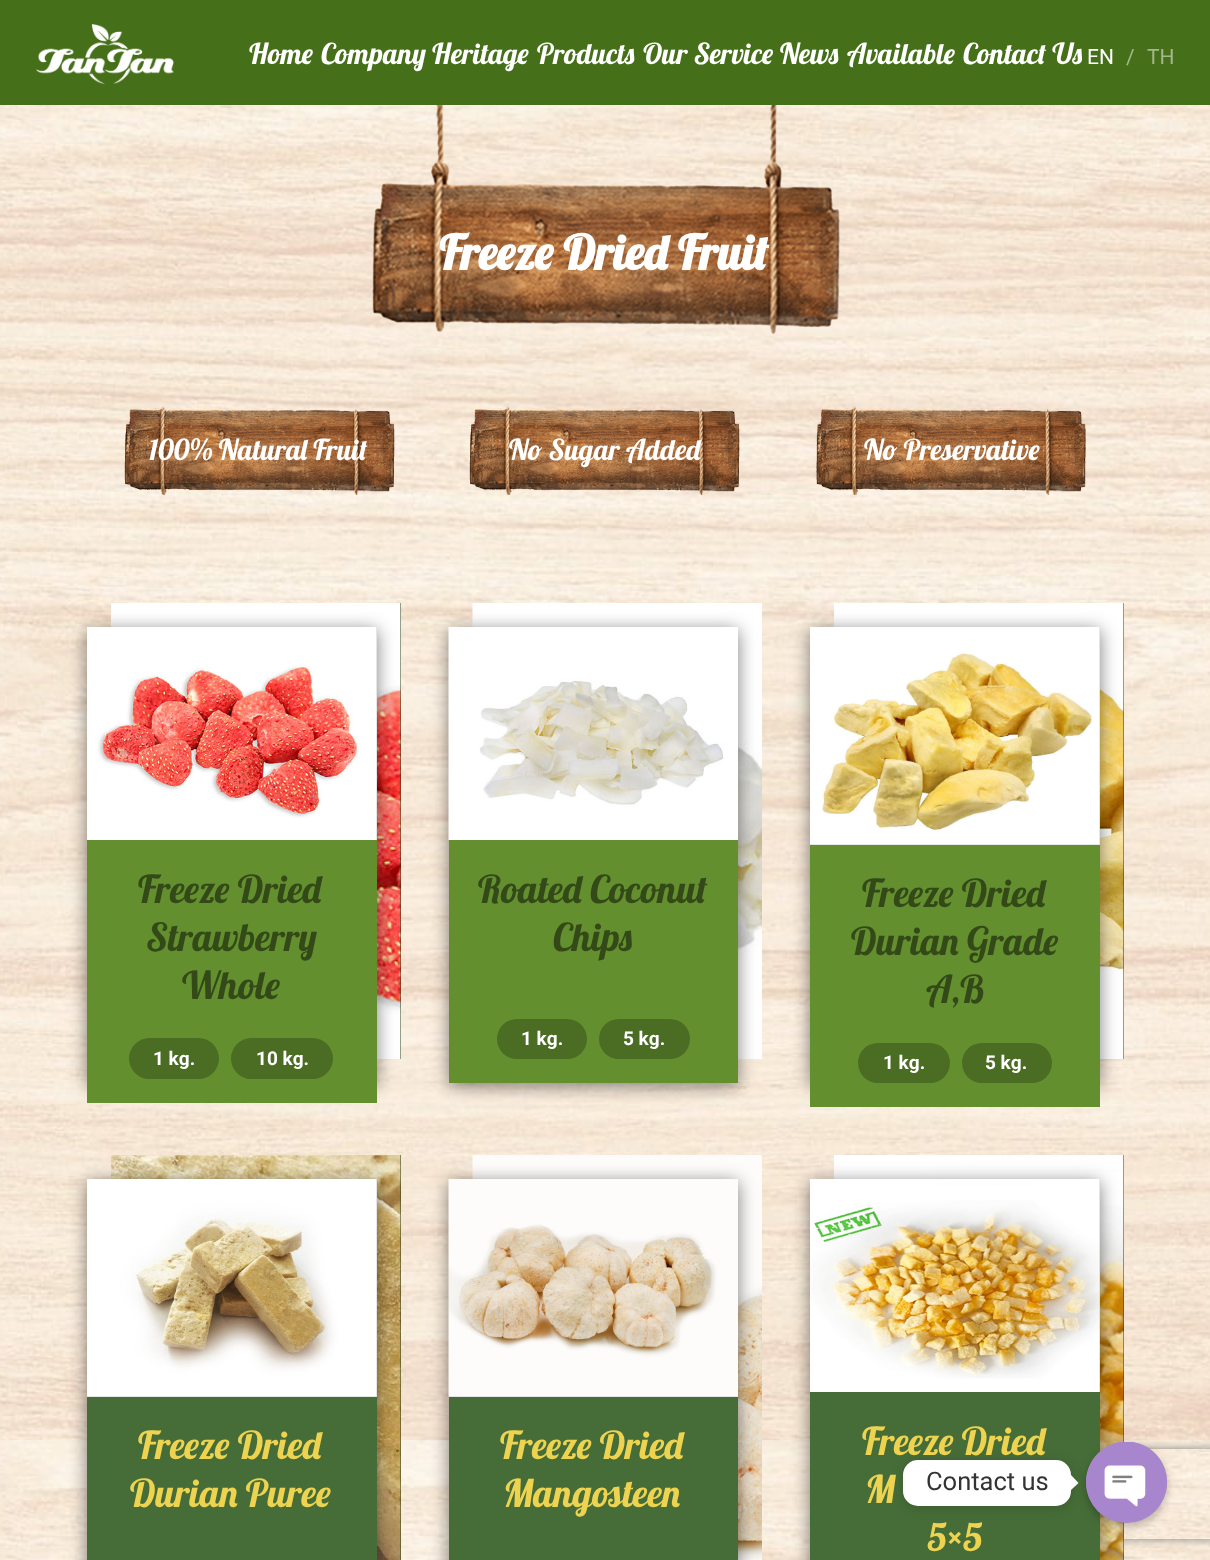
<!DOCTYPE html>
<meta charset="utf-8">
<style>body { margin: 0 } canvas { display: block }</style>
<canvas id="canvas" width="1210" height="1560"></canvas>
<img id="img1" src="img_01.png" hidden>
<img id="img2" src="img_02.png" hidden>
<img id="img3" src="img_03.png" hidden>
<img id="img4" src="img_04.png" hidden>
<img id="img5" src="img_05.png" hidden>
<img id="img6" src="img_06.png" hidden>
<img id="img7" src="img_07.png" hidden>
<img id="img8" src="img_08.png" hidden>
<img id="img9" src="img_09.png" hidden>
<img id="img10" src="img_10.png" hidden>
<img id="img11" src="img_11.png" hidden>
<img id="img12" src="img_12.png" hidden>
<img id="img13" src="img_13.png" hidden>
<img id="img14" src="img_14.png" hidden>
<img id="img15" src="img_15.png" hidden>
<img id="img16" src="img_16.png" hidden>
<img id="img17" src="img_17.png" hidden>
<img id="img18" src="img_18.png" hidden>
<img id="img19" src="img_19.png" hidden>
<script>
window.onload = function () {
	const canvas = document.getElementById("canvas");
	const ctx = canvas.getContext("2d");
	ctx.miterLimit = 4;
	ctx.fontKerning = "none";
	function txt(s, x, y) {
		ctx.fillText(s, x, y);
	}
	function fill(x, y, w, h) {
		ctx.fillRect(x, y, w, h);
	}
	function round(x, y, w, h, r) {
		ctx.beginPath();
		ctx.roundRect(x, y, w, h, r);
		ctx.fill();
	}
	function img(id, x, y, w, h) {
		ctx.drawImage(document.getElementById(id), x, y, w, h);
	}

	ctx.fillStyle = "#FFFFFF";
	fill(0, 0, 1210, 1560);
	img("img1", 0, 105, 1210, 1455);
	ctx.fillStyle = "#466F19";
	fill(0, 0, 1210, 105);
	img("img2", 36, 24, 138, 60);
	img("img3", 372, 105, 468, 229);
	img("img4", 124, 406, 271, 89);
	img("img5", 469, 406, 271, 89);
	img("img6", 816, 406, 270, 89);
	ctx.fillStyle = "#283B10";
	fill(400, 603, 1, 456);
	img("img7", 111, 603, 290, 456);
	ctx.fillStyle = "rgba(0, 0, 0, 0.5)";
	ctx.filter = "blur(9px)";
	ctx.beginPath();
	ctx.rect(87, 630, 290, 456);
	ctx.fill();
	ctx.filter = "none";
	ctx.fillStyle = "#CCCCCC";
	fill(376, 627, 1, 213);
	img("img8", 87, 627, 290, 213);
	ctx.fillStyle = "#638F2F";
	fill(87, 840, 290, 263);
	ctx.fillStyle = "#4B6C23";
	round(129, 1038, 90, 41, 20.5);
	round(231, 1038, 102, 41, 20.5);
	img("img9", 472, 603, 290, 456);
	ctx.fillStyle = "rgba(0, 0, 0, 0.5)";
	ctx.filter = "blur(9px)";
	ctx.beginPath();
	ctx.rect(449, 630, 289, 456);
	ctx.fill();
	ctx.filter = "none";
	img("img10", 448, 627, 290, 213);
	ctx.fillStyle = "#638F2F";
	fill(449, 840, 289, 243);
	ctx.fillStyle = "#4B6C23";
	round(497, 1019, 90, 40, 20);
	round(599, 1019, 91, 40, 20);
	ctx.fillStyle = "#283B10";
	fill(1123, 603, 1, 456);
	img("img11", 834, 603, 290, 456);
	ctx.fillStyle = "rgba(0, 0, 0, 0.5)";
	ctx.filter = "blur(9px)";
	ctx.beginPath();
	ctx.rect(810, 630, 290, 456);
	ctx.fill();
	ctx.filter = "none";
	ctx.fillStyle = "#CCCCCC";
	fill(810, 627, 290, 218);
	img("img12", 810, 627, 290, 218);
	ctx.fillStyle = "#638F2F";
	fill(810, 845, 290, 262);
	ctx.fillStyle = "#4B6C23";
	round(858, 1043, 92, 40, 20);
	round(962, 1043, 90, 40, 20);
	ctx.fillStyle = "#283B10";
	fill(400, 1155, 1, 405);
	img("img13", 111, 1155, 290, 405);
	ctx.fillStyle = "rgba(0, 0, 0, 0.5)";
	ctx.filter = "blur(9px)";
	ctx.beginPath();
	ctx.rect(87, 1182, 290, 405);
	ctx.fill();
	ctx.filter = "none";
	ctx.fillStyle = "#CCCCCC";
	fill(87, 1179, 290, 218);
	img("img14", 87, 1179, 290, 218);
	ctx.fillStyle = "#466D38";
	fill(87, 1397, 290, 163);
	img("img15", 472, 1155, 290, 405);
	ctx.fillStyle = "rgba(0, 0, 0, 0.5)";
	ctx.filter = "blur(9px)";
	ctx.beginPath();
	ctx.rect(449, 1182, 289, 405);
	ctx.fill();
	ctx.filter = "none";
	ctx.fillStyle = "#CCCCCC";
	fill(449, 1396, 289, 1);
	img("img16", 448, 1179, 290, 218);
	ctx.fillStyle = "#466D38";
	fill(449, 1397, 289, 163);
	ctx.save();
	ctx.beginPath();
	ctx.moveTo(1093, 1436);
	ctx.lineTo(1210, 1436);
	ctx.lineTo(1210, 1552);
	ctx.lineTo(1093, 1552);
	ctx.closePath();
	ctx.moveTo(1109, 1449);
	ctx.lineTo(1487, 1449);
	ctx.bezierCurveTo(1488.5, 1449, 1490, 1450.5, 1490, 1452);
	ctx.lineTo(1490, 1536);
	ctx.bezierCurveTo(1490, 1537.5, 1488.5, 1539, 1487, 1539);
	ctx.lineTo(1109, 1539);
	ctx.bezierCurveTo(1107.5, 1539, 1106, 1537.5, 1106, 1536);
	ctx.lineTo(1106, 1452);
	ctx.bezierCurveTo(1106, 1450.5, 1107.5, 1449, 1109, 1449);
	ctx.closePath();
	ctx.clip("evenodd");
	ctx.fillStyle = "#808080";
	ctx.filter = "blur(4px)";
	ctx.beginPath();
	ctx.roundRect(1106, 1449, 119, 90, 3);
	ctx.fill();
	ctx.filter = "none";
	ctx.restore();
	ctx.fillStyle = "#283B10";
	fill(1123, 1155, 1, 405);
	img("img17", 834, 1155, 290, 405);
	ctx.fillStyle = "rgba(0, 0, 0, 0.5)";
	ctx.filter = "blur(9px)";
	ctx.beginPath();
	ctx.rect(810, 1182, 290, 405);
	ctx.fill();
	ctx.filter = "none";
	ctx.fillStyle = "#CCCCCC";
	fill(1099, 1179, 1, 213);
	img("img18", 810, 1179, 290, 213);
	ctx.fillStyle = "#466D38";
	fill(810, 1392, 290, 168);
	ctx.fillStyle = "rgba(0, 0, 0, 0.15)";
	ctx.filter = "blur(6px)";
	ctx.beginPath();
	ctx.roundRect(903, 1461, 168, 47, 15);
	ctx.fill();
	ctx.filter = "none";
	ctx.fillStyle = "#FFFFFF";
	round(903, 1460, 168, 46, 15);
	ctx.beginPath();
	ctx.moveTo(1071, 1490);
	ctx.lineTo(1071, 1475);
	ctx.lineTo(1078.5, 1483);
	ctx.closePath();
	ctx.fill();
	ctx.fillStyle = "rgba(0, 0, 0, 0.25)";
	ctx.filter = "blur(4.5px)";
	ctx.beginPath();
	ctx.roundRect(1086, 1446, 81, 81, 40.5);
	ctx.fill();
	ctx.filter = "none";
	ctx.fillStyle = "#A886CD";
	ctx.beginPath();
	ctx.arc(1126.5, 1482.5, 40.5, 0, Math.PI * 2);
	ctx.fill();
	img("img19", 1086, 1442, 81, 72);
	ctx.font = "28.75px Lobster";
	ctx.fillStyle = "#FFFFFF";
	txt("Home", 249, 64);
	txt("Company Heritage", 321, 64);
	txt("Products", 537, 64);
	txt("Our Service", 643, 64);
	txt("News", 780, 64);
	txt("Available", 847, 64);
	txt("Contact Us", 963, 64);
	ctx.font = "21px Roboto";
	txt("EN", 1087, 64);
	ctx.fillStyle = "#A3B78C";
	txt("/", 1126, 64);
	txt("TH", 1147, 64);
	ctx.font = "bold 48px Lobster";
	ctx.fillStyle = "#FFFFFF";
	txt("Freeze Dried Fruit", 439, 270);
	ctx.font = "28.75px Lobster";
	txt("100% Natural Fruit", 149, 460);
	txt("No Sugar Added", 509, 460);
	txt("No Preservative", 864, 460);
	ctx.font = "38.5px Lobster";
	ctx.fillStyle = "#334918";
	txt("Freeze Dried", 138, 903);
	txt("Strawberry", 146, 951);
	txt("Whole", 182, 999);
	ctx.font = "bold 19px Roboto";
	ctx.fillStyle = "#FFFFFF";
	txt("1 kg.", 153, 1065);
	txt("10 kg.", 256, 1065);
	ctx.font = "38.5px Lobster";
	ctx.fillStyle = "#334918";
	txt("Roated Coconut", 478, 903);
	txt("Chips", 553, 951);
	ctx.font = "bold 19px Roboto";
	ctx.fillStyle = "#FFFFFF";
	txt("1 kg.", 521, 1045);
	txt("5 kg.", 623, 1045);
	ctx.font = "38.5px Lobster";
	ctx.fillStyle = "#334918";
	txt("Freeze Dried", 862, 907);
	txt("Durian Grade", 851, 955);
	txt("A,B", 926, 1003);
	ctx.font = "bold 19px Roboto";
	ctx.fillStyle = "#FFFFFF";
	txt("1 kg.", 883, 1069);
	txt("5 kg.", 985, 1069);
	ctx.font = "38.5px Lobster";
	ctx.fillStyle = "#EDD350";
	txt("Freeze Dried", 138, 1459);
	txt("Durian Puree", 130, 1507);
	txt("Freeze Dried", 500, 1459);
	txt("Mangosteen", 503, 1507);
	txt("Freeze Dried", 862, 1455);
	txt("M", 865, 1503);
	txt("5×5", 927, 1551);
	ctx.font = "25.5px Roboto";
	ctx.fillStyle = "#333333";
	txt("Contact us", 926, 1490);
};
</script>
